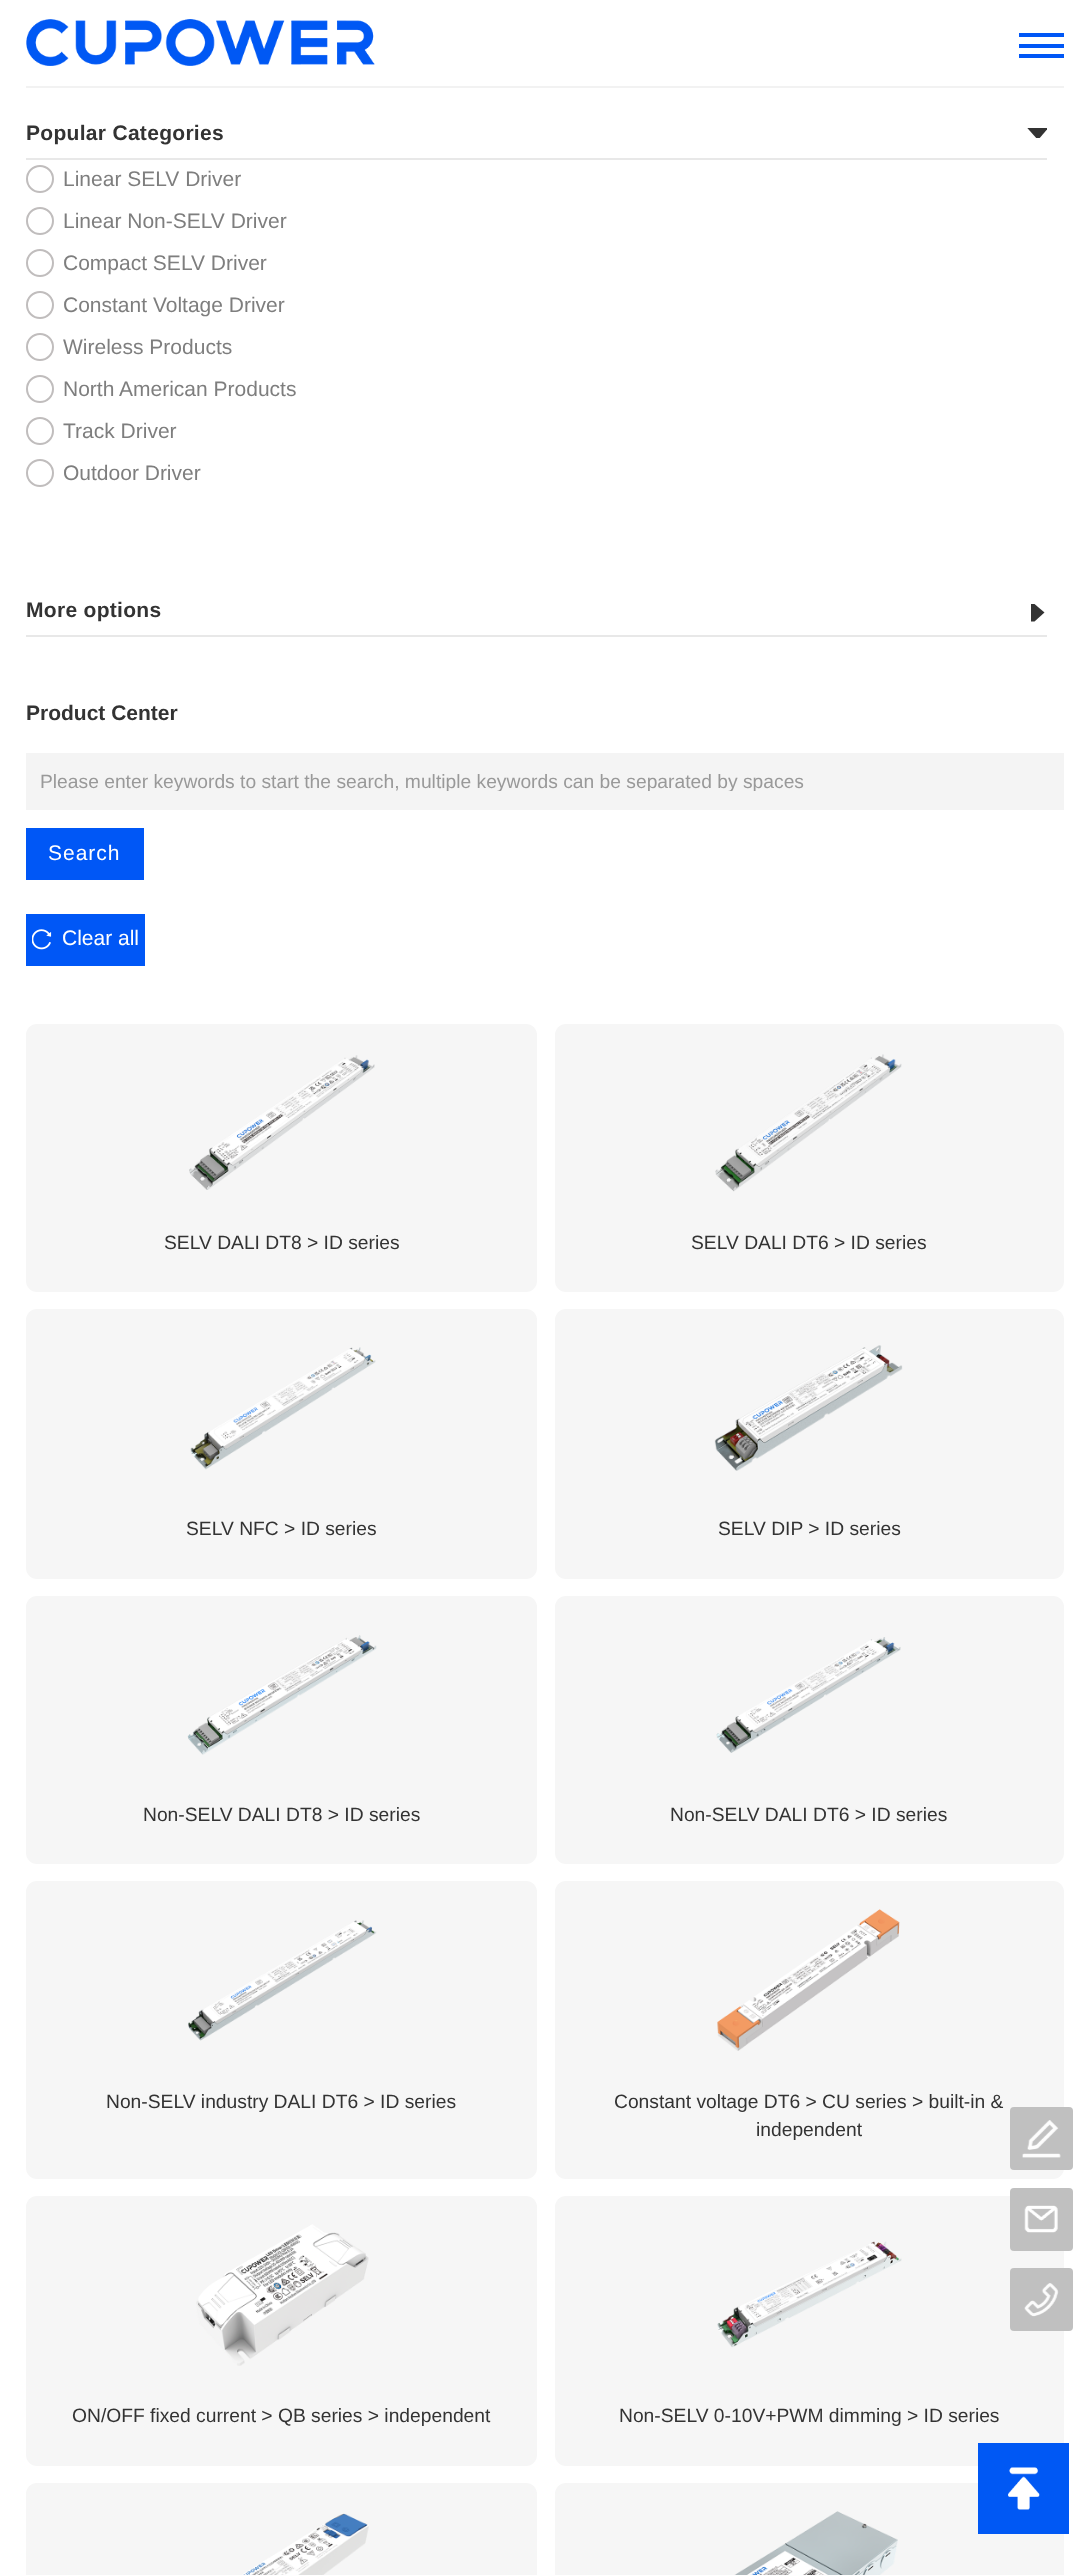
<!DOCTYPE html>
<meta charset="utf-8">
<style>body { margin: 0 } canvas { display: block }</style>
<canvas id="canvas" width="1089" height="2575"></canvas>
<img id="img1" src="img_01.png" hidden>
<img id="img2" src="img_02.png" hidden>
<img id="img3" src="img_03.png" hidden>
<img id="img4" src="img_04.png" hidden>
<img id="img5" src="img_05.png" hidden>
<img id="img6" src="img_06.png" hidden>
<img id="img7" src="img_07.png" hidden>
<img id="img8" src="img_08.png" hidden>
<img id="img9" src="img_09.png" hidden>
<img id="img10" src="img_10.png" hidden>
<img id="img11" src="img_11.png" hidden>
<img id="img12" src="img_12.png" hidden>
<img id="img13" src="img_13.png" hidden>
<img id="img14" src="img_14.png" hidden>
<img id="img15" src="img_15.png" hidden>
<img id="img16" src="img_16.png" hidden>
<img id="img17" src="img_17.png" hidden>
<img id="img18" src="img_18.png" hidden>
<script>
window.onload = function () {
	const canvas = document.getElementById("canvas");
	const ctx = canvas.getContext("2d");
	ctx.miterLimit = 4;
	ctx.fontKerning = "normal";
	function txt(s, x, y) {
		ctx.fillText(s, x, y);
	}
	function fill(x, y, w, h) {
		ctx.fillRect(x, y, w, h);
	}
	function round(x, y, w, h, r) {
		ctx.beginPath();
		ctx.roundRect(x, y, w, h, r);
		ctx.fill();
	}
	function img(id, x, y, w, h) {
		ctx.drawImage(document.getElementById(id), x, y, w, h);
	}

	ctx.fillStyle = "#FFFFFF";
	fill(0, 0, 1089, 2575);
	ctx.fillStyle = "#F2F2F2";
	fill(26, 86, 1038, 2);
	img("img1", 26, 19, 349, 47);
	ctx.fillStyle = "#0057F6";
	fill(1019, 33, 45, 4);
	fill(1019, 44, 45, 4);
	fill(1019, 54, 45, 4);
	ctx.fillStyle = "#E8E8E8";
	fill(26, 158, 1021, 2);
	ctx.save();
	ctx.beginPath();
	ctx.rect(1027, 128, 20, 10);
	ctx.clip();
	ctx.fillStyle = "#333333";
	ctx.beginPath();
	ctx.moveTo(1038, 140);
	ctx.lineTo(1025.5, 126);
	ctx.lineTo(1050, 126);
	ctx.closePath();
	ctx.fill();
	ctx.restore();
	ctx.beginPath();
	ctx.arc(40, 179, 13, 0, Math.PI * 2);
	ctx.strokeStyle = "#C0BDBD";
	ctx.lineWidth = 2;
	ctx.stroke();
	ctx.beginPath();
	ctx.arc(40, 221, 13, 0, Math.PI * 2);
	ctx.stroke();
	ctx.beginPath();
	ctx.arc(40, 263, 13, 0, Math.PI * 2);
	ctx.stroke();
	ctx.beginPath();
	ctx.arc(40, 305, 13, 0, Math.PI * 2);
	ctx.stroke();
	ctx.beginPath();
	ctx.arc(40, 347, 13, 0, Math.PI * 2);
	ctx.stroke();
	ctx.beginPath();
	ctx.arc(40, 389, 13, 0, Math.PI * 2);
	ctx.stroke();
	ctx.beginPath();
	ctx.arc(40, 431, 13, 0, Math.PI * 2);
	ctx.stroke();
	ctx.beginPath();
	ctx.arc(40, 473, 13, 0, Math.PI * 2);
	ctx.stroke();
	fill(26, 635, 1021, 2);
	ctx.fillStyle = "#333333";
	ctx.beginPath();
	ctx.moveTo(1044.5, 612.5);
	ctx.lineTo(1034.5, 621.5);
	ctx.lineTo(1031, 621.5);
	ctx.lineTo(1031, 604);
	ctx.lineTo(1034.5, 604);
	ctx.closePath();
	ctx.fill();
	ctx.fillStyle = "#F4F4F4";
	fill(26, 753, 1038, 57);
	ctx.fillStyle = "#0057F6";
	fill(26, 828, 118, 52);
	fill(26, 914, 119, 52);
	img("img2", 32, 929, 20, 21);
	ctx.fillStyle = "#F6F6F6";
	round(26, 1024, 511, 268, 11);
	img("img3", 189, 1055, 186, 135);
	round(555, 1024, 509, 268, 11);
	img("img4", 715, 1054, 187, 138);
	round(26, 1309, 511, 270, 11);
	img("img5", 190, 1347, 186, 123);
	round(555, 1309, 509, 270, 11);
	img("img6", 714, 1345, 189, 126);
	round(26, 1596, 511, 268, 11);
	img("img7", 187, 1635, 190, 120);
	round(555, 1596, 509, 268, 11);
	img("img8", 716, 1637, 185, 116);
	round(26, 1881, 511, 298, 11);
	img("img9", 188, 1920, 189, 121);
	round(555, 1881, 509, 298, 11);
	img("img10", 717, 1909, 183, 142);
	round(26, 2196, 511, 270, 11);
	img("img11", 196, 2224, 173, 142);
	round(555, 2196, 509, 270, 11);
	img("img12", 717, 2241, 185, 107);
	round(26, 2483, 511, 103, 11);
	img("img13", 242, 2513, 127, 62);
	round(555, 2483, 509, 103, 11);
	img("img14", 734, 2511, 164, 64);
	ctx.fillStyle = "#C0C0C0";
	round(1010, 2107, 63, 63, 4);
	img("img15", 1022, 2120, 39, 38);
	round(1010, 2188, 63, 63, 4);
	img("img16", 1024, 2205, 34, 28);
	round(1010, 2268, 63, 63, 4);
	img("img17", 1024, 2283, 35, 34);
	ctx.fillStyle = "#0058F4";
	fill(978, 2443, 91, 91);
	img("img18", 1008, 2467, 32, 43);
	ctx.letterSpacing = "0.3px";
	ctx.font = "bold 21px Liberation Sans";
	ctx.fillStyle = "#333333";
	txt("Popular Categories", 26, 140);
	ctx.letterSpacing = "0px";
	ctx.font = "21px Liberation Sans";
	ctx.fillStyle = "#7E7E7E";
	txt("Linear SELV Driver", 63, 186);
	txt("Linear Non-SELV Driver", 63, 228);
	txt("Compact SELV Driver", 63, 270);
	txt("Constant Voltage Driver", 63, 312);
	txt("Wireless Products", 63, 354);
	txt("North American Products", 63, 396);
	txt("Track Driver", 63, 438);
	txt("Outdoor Driver", 63, 480);
	ctx.letterSpacing = "0.3px";
	ctx.font = "bold 21px Liberation Sans";
	ctx.fillStyle = "#333333";
	txt("More options", 26, 617);
	ctx.letterSpacing = "0px";
	txt("Product Center", 26, 720);
	ctx.save();
	ctx.beginPath();
	ctx.rect(40, 770, 1010, 21);
	ctx.clip();
	ctx.font = "19.25px Liberation Sans";
	ctx.fillStyle = "#999999";
	txt("Please enter keywords to start the search, multiple keywords can be separated by spaces", 40, 788);
	ctx.restore();
	ctx.letterSpacing = "1px";
	ctx.font = "21px Liberation Sans";
	ctx.fillStyle = "#FFFFFF";
	txt("Search", 48, 860);
	ctx.letterSpacing = "0px";
	txt("Clear all", 62, 945);
	ctx.font = "19.25px Liberation Sans";
	ctx.fillStyle = "#333333";
	txt("SELV DALI DT8 > ID series", 164, 1249);
	txt("SELV DALI DT6 > ID series", 691, 1249);
	txt("SELV NFC > ID series", 186, 1535);
	txt("SELV DIP > ID series", 718, 1535);
	txt("Non-SELV DALI DT8 > ID series", 143, 1821);
	txt("Non-SELV DALI DT6 > ID series", 670, 1821);
	txt("Non-SELV industry DALI DT6 > ID series", 106, 2108);
	txt("Constant voltage DT6 > CU series > built-in &", 614, 2108);
	txt("independent", 756, 2136);
	txt("ON/OFF fixed current > QB series > independent", 72, 2422);
	txt("Non-SELV 0-10V+PWM dimming > ID series", 619, 2422);
};
</script>
